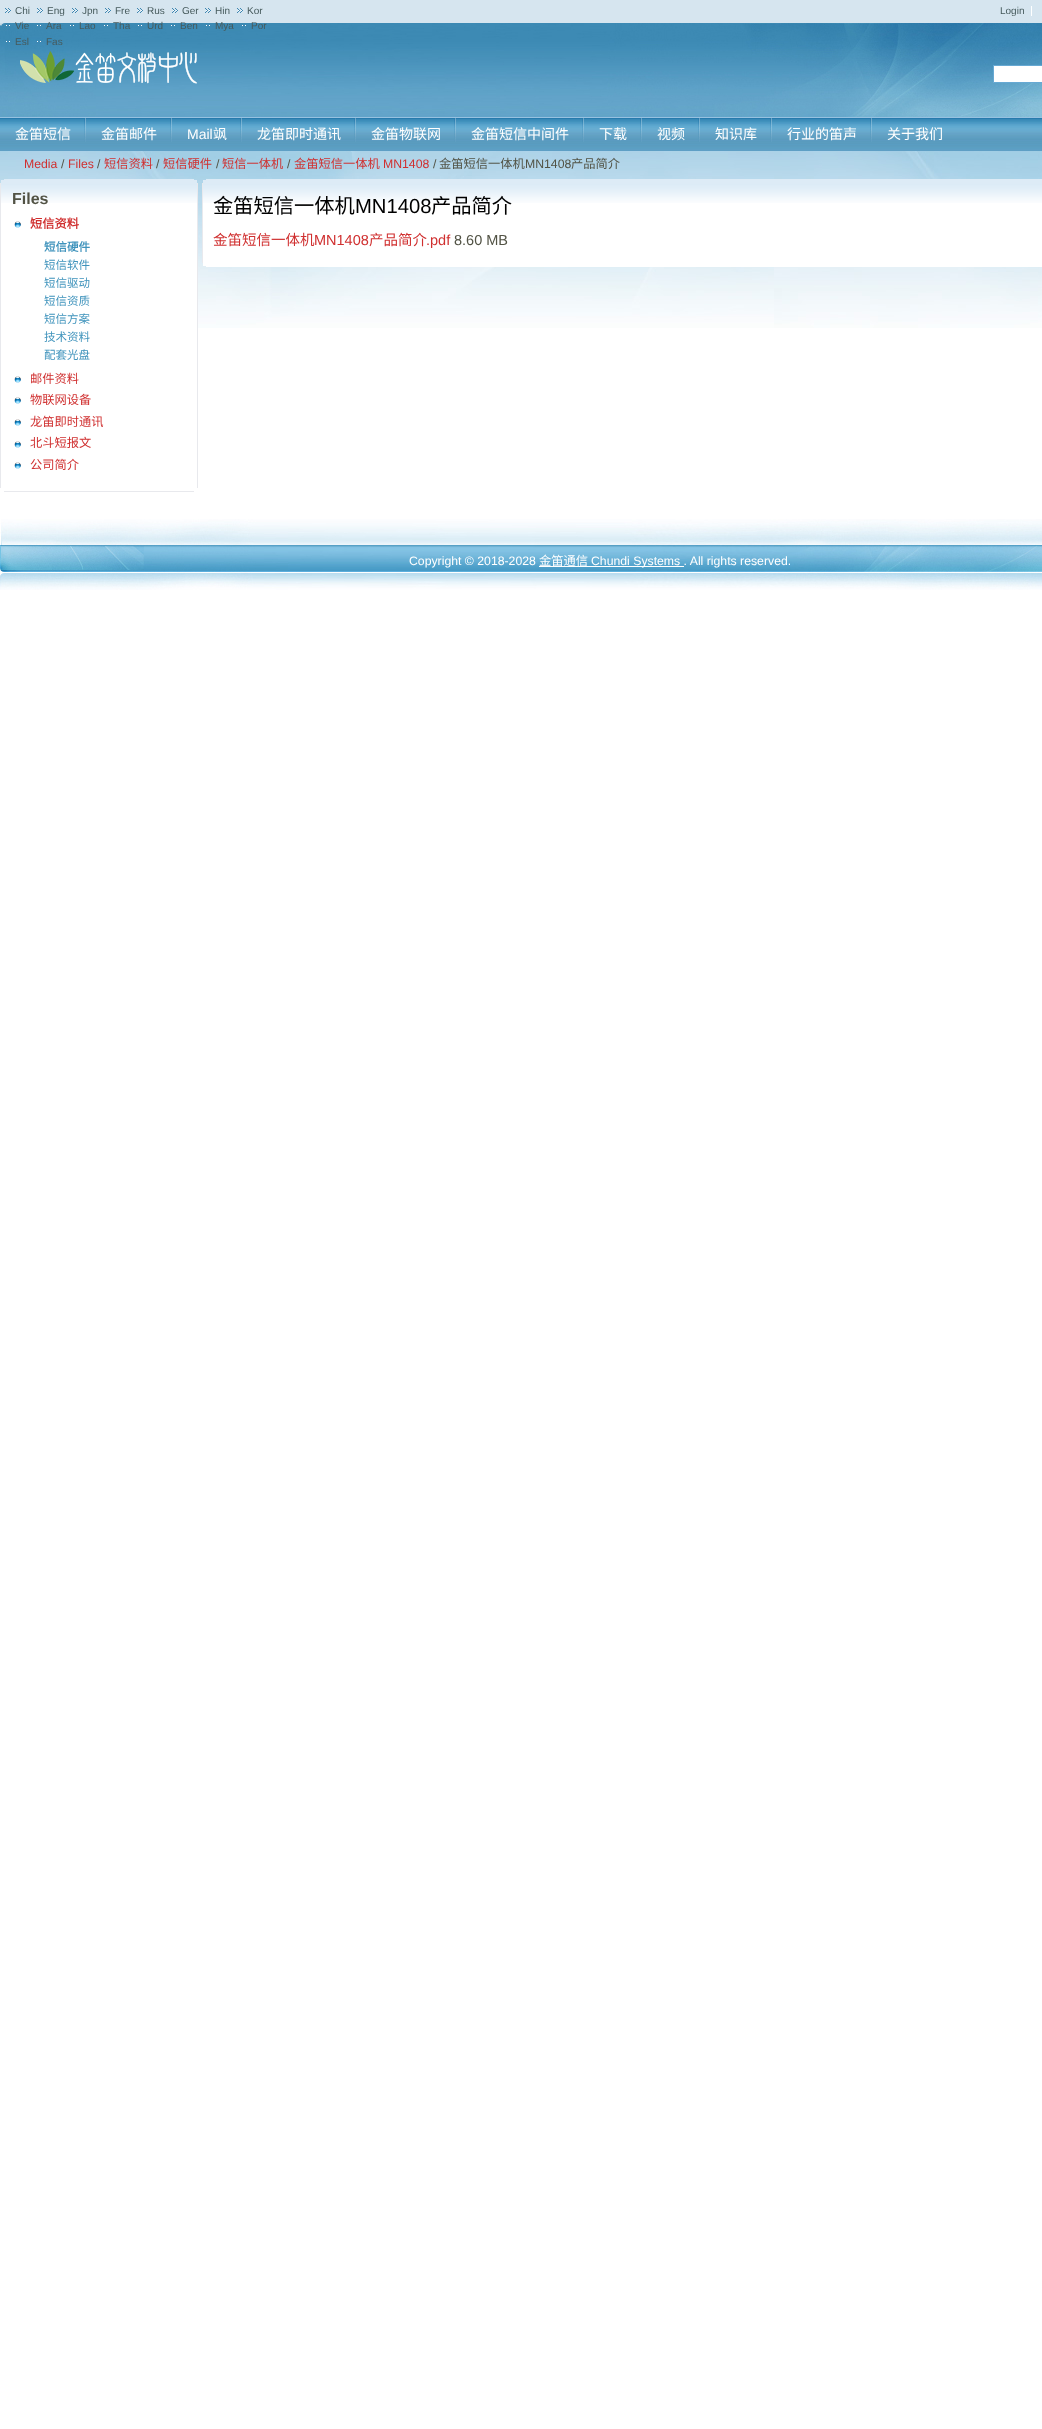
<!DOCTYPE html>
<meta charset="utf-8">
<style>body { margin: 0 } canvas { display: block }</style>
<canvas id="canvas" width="1042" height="2429"></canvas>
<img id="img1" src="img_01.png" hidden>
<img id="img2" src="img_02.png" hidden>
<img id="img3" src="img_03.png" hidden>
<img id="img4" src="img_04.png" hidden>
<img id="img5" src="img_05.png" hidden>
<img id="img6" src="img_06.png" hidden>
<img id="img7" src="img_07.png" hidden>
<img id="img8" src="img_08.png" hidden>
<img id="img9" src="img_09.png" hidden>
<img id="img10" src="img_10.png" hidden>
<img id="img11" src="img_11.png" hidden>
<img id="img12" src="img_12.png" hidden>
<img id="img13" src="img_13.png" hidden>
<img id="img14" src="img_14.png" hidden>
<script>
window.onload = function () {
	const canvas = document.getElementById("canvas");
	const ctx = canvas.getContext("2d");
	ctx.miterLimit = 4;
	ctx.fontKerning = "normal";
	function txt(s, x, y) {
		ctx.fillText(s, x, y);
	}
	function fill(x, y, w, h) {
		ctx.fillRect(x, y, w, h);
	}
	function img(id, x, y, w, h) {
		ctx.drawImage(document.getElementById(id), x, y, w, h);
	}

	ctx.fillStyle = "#FFFFFF";
	fill(0, 0, 1042, 2429);
	img("img1", 0, 151, 1042, 177);
	img("img2", 0, 23, 1042, 94);
	ctx.fillStyle = "#96C1E0";
	fill(0, 117, 1042, 1);
	ctx.fillStyle = "#D6E5EF";
	fill(0, 0, 1042, 23);
	img("img3", 5, 8, 6, 5);
	img("img3", 37, 8, 6, 5);
	img("img3", 72, 8, 6, 5);
	img("img3", 105, 8, 6, 5);
	img("img3", 137, 8, 6, 5);
	img("img3", 172, 8, 6, 5);
	img("img3", 205, 8, 6, 5);
	img("img3", 237, 8, 6, 5);
	img("img4", 6, 25, 4, 1);
	img("img5", 37, 25, 4, 1);
	img("img6", 70, 25, 4, 1);
	img("img5", 104, 25, 4, 1);
	img("img6", 138, 25, 4, 1);
	img("img5", 171, 25, 4, 1);
	img("img5", 206, 25, 4, 1);
	img("img6", 242, 25, 4, 1);
	img("img6", 6, 41, 4, 1);
	img("img7", 36, 41, 6, 3);
	ctx.fillStyle = "#FEFFFF";
	fill(1031, 6, 1, 10);
	img("img8", 20, 51, 177, 33);
	ctx.fillStyle = "#FFFFFF";
	ctx.beginPath();
	ctx.rect(993.5, 65.5, 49, 17);
	ctx.fill();
	ctx.strokeStyle = "#67A9D3";
	ctx.stroke();
	img("img9", 0, 118, 1042, 33);
	img("img10", 84, 118, 2, 24);
	img("img10", 170, 118, 2, 24);
	img("img10", 240, 118, 2, 24);
	img("img10", 354, 118, 2, 24);
	img("img10", 454, 118, 2, 24);
	img("img10", 582, 118, 2, 24);
	img("img10", 640, 118, 2, 24);
	img("img10", 698, 118, 2, 24);
	img("img10", 770, 118, 2, 24);
	img("img10", 870, 118, 2, 24);
	ctx.fillStyle = "#DDEBF6";
	fill(1, 180, 3, 3);
	fill(194, 180, 3, 3);
	fill(4, 179, 190, 4);
	ctx.fillStyle = "#E8E9ED";
	fill(0, 183, 1, 305);
	fill(197, 183, 1, 305);
	ctx.fillStyle = "#FFFFFF";
	fill(1, 203, 196, 125);
	img("img11", 1, 183, 196, 20);
	img("img12", 14, 221, 7, 7);
	img("img12", 14, 376, 7, 7);
	img("img12", 14, 397, 7, 7);
	img("img12", 14, 419, 7, 7);
	img("img12", 14, 441, 7, 7);
	img("img12", 14, 462, 7, 7);
	ctx.fillStyle = "#E8E9ED";
	fill(4, 491, 190, 1);
	ctx.fillStyle = "#DDEBF6";
	fill(203, 180, 3, 3);
	fill(206, 179, 836, 4);
	ctx.fillStyle = "#E8E9ED";
	fill(202, 183, 1, 80);
	ctx.fillStyle = "#FFFFFF";
	fill(203, 203, 839, 60);
	img("img13", 203, 183, 839, 20);
	fill(203, 263, 3, 3);
	fill(206, 263, 836, 4);
	img("img14", 0, 519, 1042, 71);
	fill(539, 566, 145, 1);
	ctx.font = "10px Liberation Sans";
	ctx.fillStyle = "#465A5C";
	txt("Chi", 15, 14);
	txt("Eng", 47, 14);
	txt("Jpn", 82, 14);
	txt("Fre", 115, 14);
	txt("Rus", 147, 14);
	txt("Ger", 182, 14);
	txt("Hin", 215, 14);
	txt("Kor", 247, 14);
	txt("Vie", 15, 29);
	txt("Ara", 46, 29);
	txt("Lao", 79, 29);
	txt("Tha", 113, 29);
	txt("Urd", 147, 29);
	txt("Ben", 180, 29);
	txt("Mya", 215, 29);
	txt("Por", 251, 29);
	txt("Esl", 15, 45);
	txt("Fas", 46, 45);
	txt("Login", 1000, 14);
	ctx.font = "14px Noto Sans CJK SC";
	ctx.fillStyle = "#FFFFFF";
	txt("金笛短信", 15, 139);
	txt("金笛邮件", 101, 139);
	ctx.font = "14px Liberation Sans";
	txt("Mail", 187, 139);
	ctx.font = "14px Noto Sans CJK SC";
	txt("飒", 213, 139);
	txt("龙笛即时通讯", 257, 139);
	txt("金笛物联网", 371, 139);
	txt("金笛短信中间件", 471, 139);
	txt("下载", 599, 139);
	txt("视频", 657, 139);
	txt("知识库", 715, 139);
	txt("行业的笛声", 787, 139);
	txt("关于我们", 887, 139);
	ctx.font = "12.25px Liberation Sans";
	ctx.fillStyle = "#D03030";
	txt("Media", 24, 168);
	ctx.fillStyle = "#525345";
	txt("/", 61, 168);
	ctx.fillStyle = "#D03030";
	txt("Files", 68, 168);
	ctx.fillStyle = "#525345";
	txt("/", 97, 168);
	ctx.font = "12.25px Noto Sans CJK SC";
	ctx.fillStyle = "#D03030";
	txt("短信资料", 104, 168);
	ctx.font = "12.25px Liberation Sans";
	ctx.fillStyle = "#525345";
	txt("/", 156, 168);
	ctx.font = "12.25px Noto Sans CJK SC";
	ctx.fillStyle = "#D03030";
	txt("短信硬件", 163, 168);
	ctx.font = "12.25px Liberation Sans";
	ctx.fillStyle = "#525345";
	txt("/", 216, 168);
	ctx.font = "12.25px Noto Sans CJK SC";
	ctx.fillStyle = "#D03030";
	txt("短信一体机", 222, 168);
	ctx.font = "12.25px Liberation Sans";
	ctx.fillStyle = "#525345";
	txt("/", 287, 168);
	ctx.font = "12.25px Noto Sans CJK SC";
	ctx.fillStyle = "#D03030";
	txt("金笛短信一体机", 294, 168);
	ctx.font = "12.25px Liberation Sans";
	txt("MN1408", 383, 168);
	ctx.fillStyle = "#525345";
	txt("/", 433, 168);
	ctx.font = "12.25px Noto Sans CJK SC";
	txt("金笛短信一体机", 439, 168);
	ctx.font = "12.25px Liberation Sans";
	txt("MN1408", 525, 168);
	ctx.font = "12.25px Noto Sans CJK SC";
	txt("产品简介", 571, 168);
	ctx.font = "bold 16px Liberation Sans";
	txt("Files", 12, 204);
	ctx.font = "bold 12.25px Noto Sans CJK SC";
	ctx.fillStyle = "#D03030";
	txt("短信资料", 30, 228);
	ctx.font = "bold 11.5px Noto Sans CJK SC";
	ctx.fillStyle = "#3F93BC";
	txt("短信硬件", 44, 251);
	ctx.font = "11.5px Noto Sans CJK SC";
	txt("短信软件", 44, 269);
	txt("短信驱动", 44, 287);
	txt("短信资质", 44, 305);
	txt("短信方案", 44, 323);
	txt("技术资料", 44, 341);
	txt("配套光盘", 44, 359);
	ctx.font = "12.25px Noto Sans CJK SC";
	ctx.fillStyle = "#D03030";
	txt("邮件资料", 30, 383);
	txt("物联网设备", 30, 404);
	txt("龙笛即时通讯", 30, 426);
	txt("北斗短报文", 30, 447);
	txt("公司简介", 30, 469);
	ctx.font = "20.25px Noto Sans CJK SC";
	ctx.fillStyle = "#000000";
	txt("金笛短信一体机", 213, 213);
	ctx.font = "20.25px Liberation Sans";
	txt("MN1408", 355, 213);
	ctx.font = "20.25px Noto Sans CJK SC";
	txt("产品简介", 431, 213);
	ctx.font = "14.5px Noto Sans CJK SC";
	ctx.fillStyle = "#D03030";
	txt("金笛短信一体机", 213, 245);
	ctx.font = "14.5px Liberation Sans";
	txt("MN1408", 314, 245);
	ctx.font = "14.5px Noto Sans CJK SC";
	txt("产品简介", 369, 245);
	ctx.font = "14.5px Liberation Sans";
	txt(".pdf", 426, 245);
	ctx.fillStyle = "#525345";
	txt("8.60 MB", 454, 245);
	ctx.font = "12.25px Liberation Sans";
	ctx.fillStyle = "#FFFFFF";
	txt("Copyright © 2018-2028", 409, 565);
	ctx.font = "12.25px Noto Sans CJK SC";
	txt("金笛通信", 539, 565);
	ctx.font = "12.25px Liberation Sans";
	txt("Chundi Systems . All rights reserved.", 591, 565);
};
</script>
